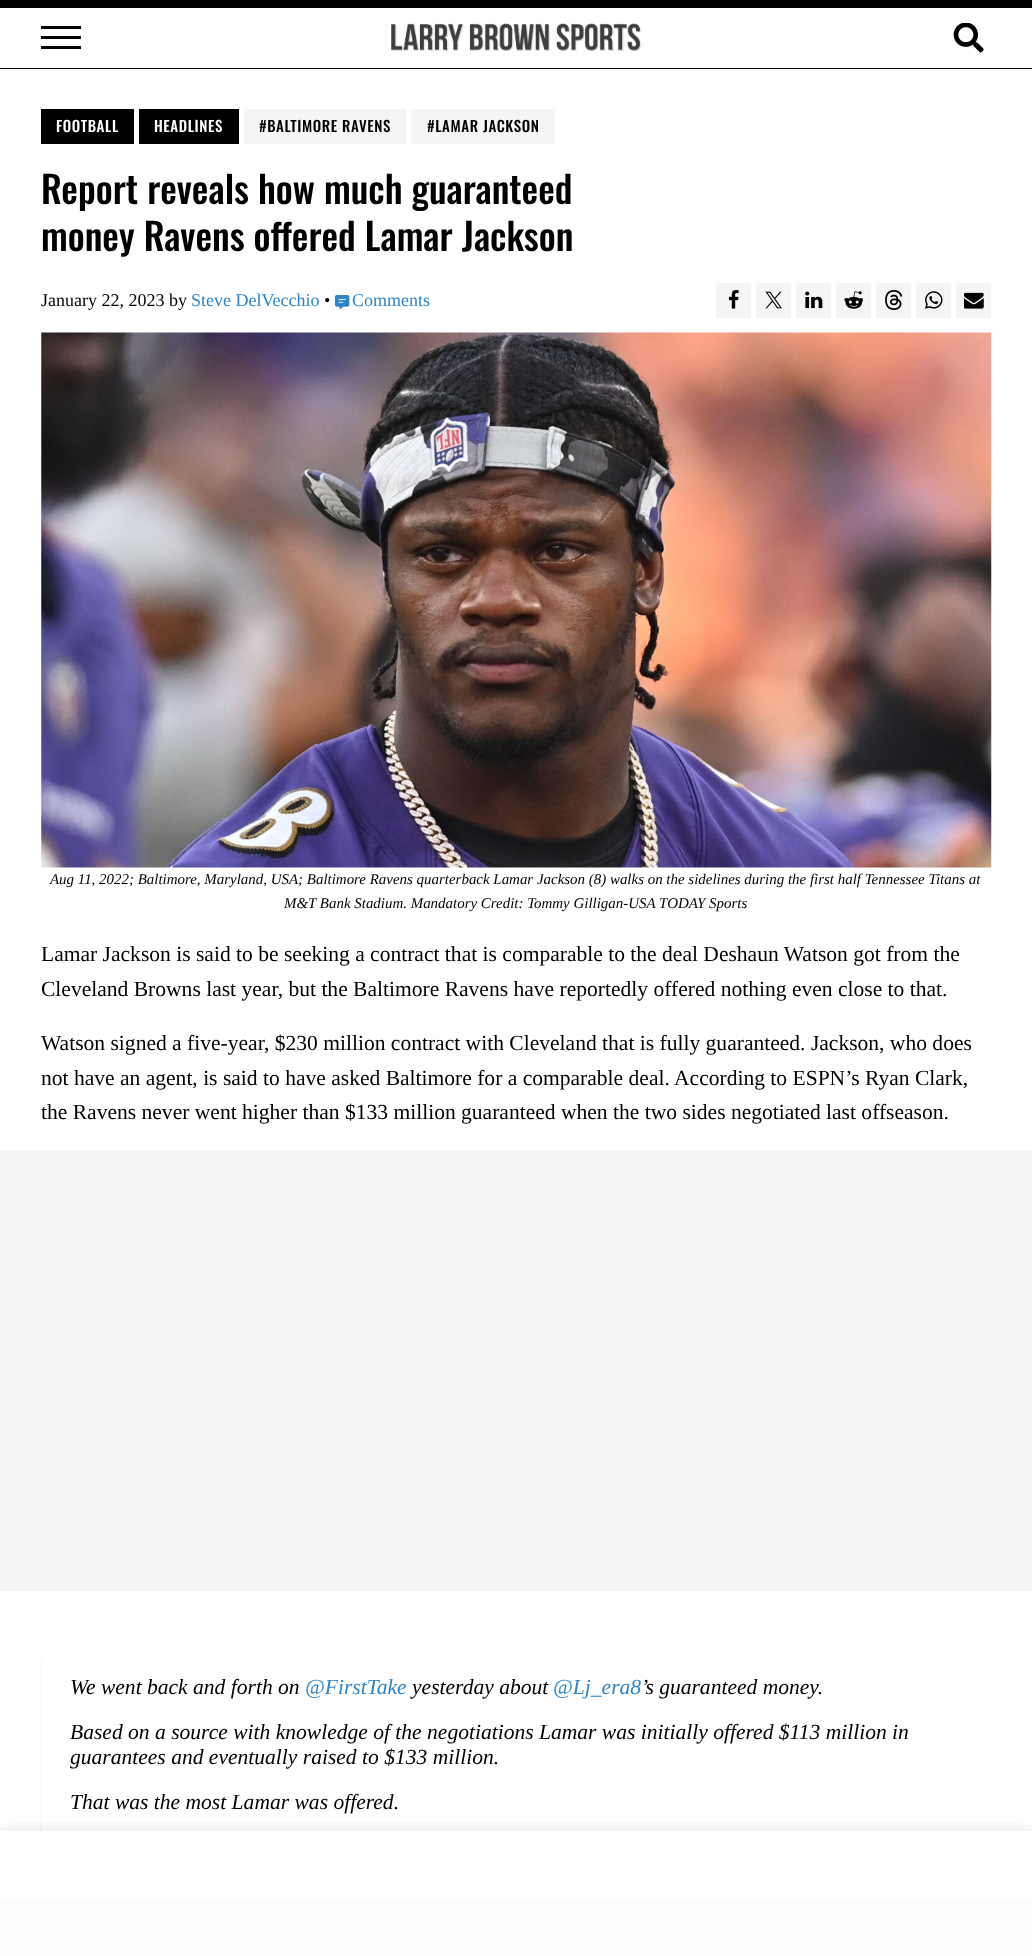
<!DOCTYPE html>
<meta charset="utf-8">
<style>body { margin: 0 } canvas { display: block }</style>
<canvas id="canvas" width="1032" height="1956"></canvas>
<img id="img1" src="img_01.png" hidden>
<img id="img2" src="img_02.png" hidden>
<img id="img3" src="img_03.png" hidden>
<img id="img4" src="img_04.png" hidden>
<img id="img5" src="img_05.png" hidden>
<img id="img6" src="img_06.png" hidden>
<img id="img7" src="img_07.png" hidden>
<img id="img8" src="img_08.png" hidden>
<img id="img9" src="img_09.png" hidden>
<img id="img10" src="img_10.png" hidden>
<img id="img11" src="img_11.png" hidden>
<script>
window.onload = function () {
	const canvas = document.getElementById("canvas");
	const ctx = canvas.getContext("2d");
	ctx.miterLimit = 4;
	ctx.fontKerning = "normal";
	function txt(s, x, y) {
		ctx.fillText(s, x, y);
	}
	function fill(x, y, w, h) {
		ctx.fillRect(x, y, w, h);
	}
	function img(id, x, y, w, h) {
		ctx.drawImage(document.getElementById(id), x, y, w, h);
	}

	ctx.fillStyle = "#FFFFFF";
	fill(0, 0, 1032, 1956);
	ctx.fillStyle = "#000000";
	fill(0, 0, 1032, 8);
	fill(0, 68, 1032, 1);
	fill(41, 36, 40, 3);
	fill(41, 26, 40, 3);
	fill(41, 46, 40, 3);
	img("img1", 391, 23, 251, 29);
	img("img2", 953, 23, 31, 30);
	fill(41, 109, 93, 35);
	fill(139, 109, 100, 35);
	ctx.fillStyle = "#F5F5F5";
	fill(244, 109, 162, 35);
	fill(411, 109, 144, 35);
	img("img3", 335, 295, 15, 14);
	fill(716, 283, 35, 35);
	img("img4", 728, 290, 11, 19);
	fill(756, 283, 35, 35);
	img("img5", 765, 291, 17, 18);
	fill(796, 283, 35, 35);
	img("img6", 805, 291, 18, 18);
	fill(836, 283, 35, 35);
	img("img7", 844, 291, 19, 18);
	fill(876, 283, 35, 35);
	img("img8", 885, 290, 18, 20);
	fill(916, 283, 35, 35);
	img("img9", 925, 291, 18, 18);
	fill(956, 283, 35, 35);
	img("img10", 964, 292, 20, 17);
	img("img11", 41, 332, 951, 536);
	fill(0, 1150, 1032, 441);
	ctx.fillStyle = "#F3F3F4";
	fill(41, 1660, 1, 210);
	ctx.fillStyle = "#F5F5F5";
	fill(0, 1899, 1032, 57);
	ctx.save();
	ctx.beginPath();
	ctx.rect(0, 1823, 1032, 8);
	ctx.clip();
	ctx.fillStyle = "rgba(0, 0, 0, 0.1)";
	ctx.filter = "blur(10px)";
	ctx.beginPath();
	ctx.rect(0, 1831, 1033, 125);
	ctx.fill();
	ctx.filter = "none";
	ctx.restore();
	ctx.fillStyle = "rgba(255, 255, 255, 0.8)";
	fill(0, 1831, 1032, 125);
	ctx.letterSpacing = "0.6px";
	ctx.font = "500 14.95px Oswald";
	ctx.fillStyle = "#FFFFFF";
	txt("FOOTBALL", 56, 132);
	txt("HEADLINES", 154, 132);
	ctx.fillStyle = "#000000";
	txt("#BALTIMORE RAVENS", 259, 132);
	txt("#LAMAR JACKSON", 427, 132);
	ctx.letterSpacing = "0px";
	ctx.font = "500 37.25px Oswald";
	txt("Report reveals how much guaranteed", 41, 204);
	txt("money Ravens offered Lamar Jackson", 41, 251);
	ctx.font = "18px Tinos";
	txt("January 22, 2023", 41, 306);
	txt("by", 169, 306);
	ctx.fillStyle = "#2F85C9";
	txt("Steve DelVecchio", 191, 306);
	ctx.fillStyle = "#000000";
	txt("•", 324, 306);
	ctx.fillStyle = "#2F85C9";
	txt("Comments", 352, 306);
	ctx.font = "italic 14.95px Tinos";
	ctx.fillStyle = "#000000";
	txt("Aug 11, 2022; Baltimore, Maryland, USA; Baltimore Ravens quarterback Lamar Jackson (8) walks on the sidelines during the first half Tennessee Titans at", 50, 884);
	txt("M&T Bank Stadium. Mandatory Credit: Tommy Gilligan-USA TODAY Sports", 284, 908);
	ctx.font = "21.55px Tinos";
	txt("Lamar Jackson is said to be seeking a contract that is comparable to the deal Deshaun Watson got from the", 41, 961);
	txt("Cleveland Browns last year, but the Baltimore Ravens have reportedly offered nothing even close to that.", 41, 996);
	txt("Watson signed a five-year, $230 million contract with Cleveland that is fully guaranteed. Jackson, who does", 41, 1050);
	txt("not have an agent, is said to have asked Baltimore for a comparable deal. According to ESPN’s Ryan Clark,", 41, 1085);
	txt("the Ravens never went higher than $133 million guaranteed when the two sides negotiated last offseason.", 41, 1119);
	ctx.font = "italic 21.55px Tinos";
	txt("We went back and forth on", 70, 1694);
	ctx.fillStyle = "#2F85C9";
	txt("@FirstTake", 305, 1694);
	ctx.fillStyle = "#000000";
	txt("yesterday about", 412, 1694);
	ctx.fillStyle = "#2F85C9";
	txt("@Lj_era8", 553, 1694);
	ctx.fillStyle = "#000000";
	txt("’s guaranteed money.", 641, 1694);
	txt("Based on a source with knowledge of the negotiations Lamar was initially offered $113 million in", 70, 1739);
	txt("guarantees and eventually raised to $133 million.", 70, 1764);
	txt("That was the most Lamar was offered.", 70, 1809);
};
</script>
